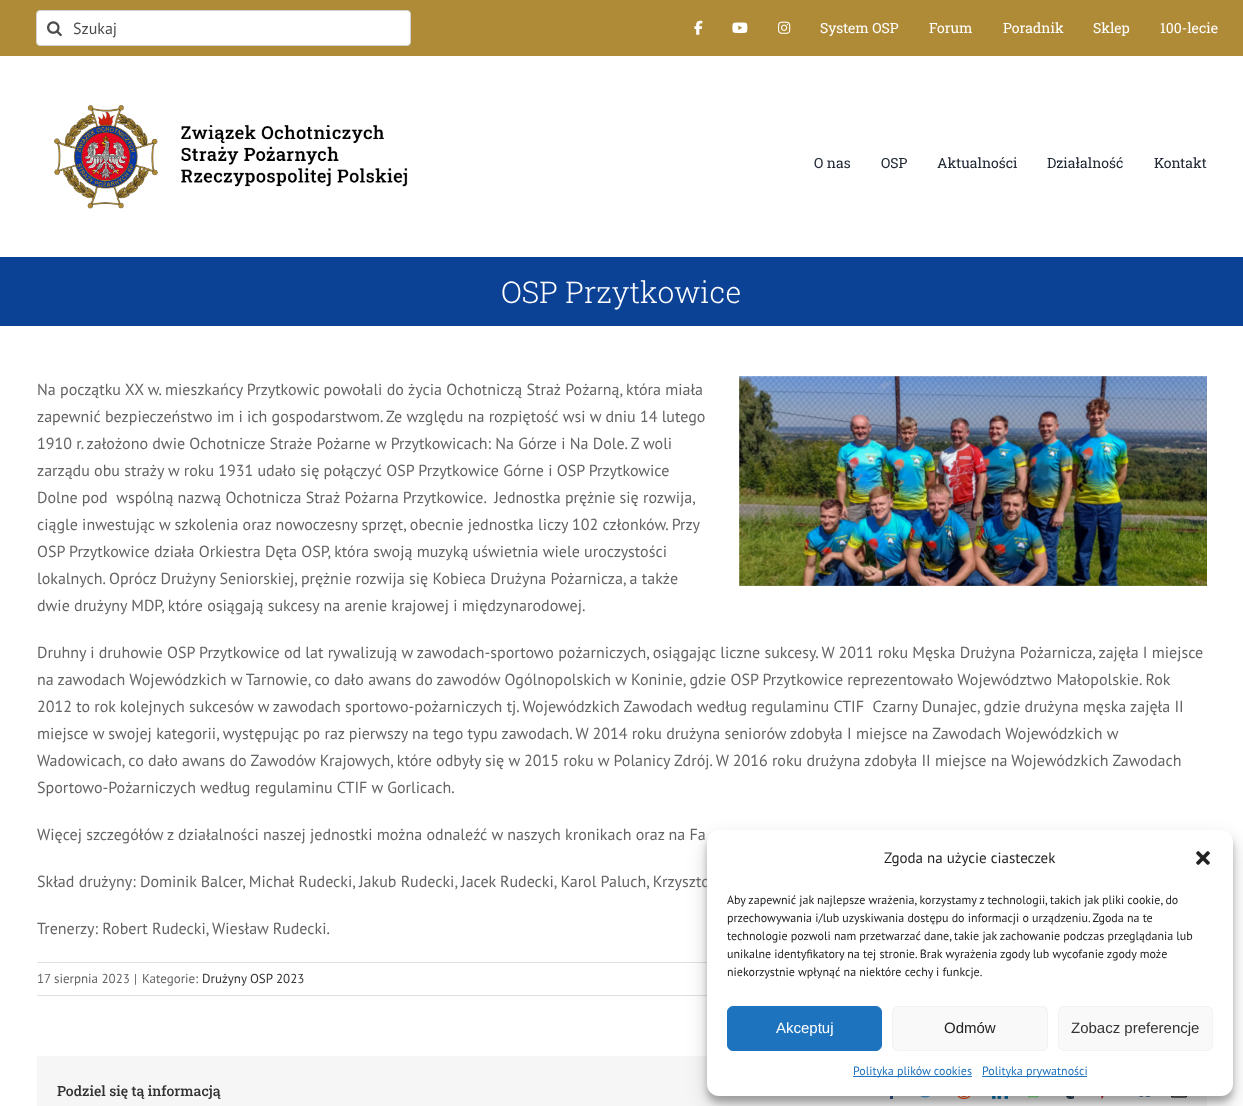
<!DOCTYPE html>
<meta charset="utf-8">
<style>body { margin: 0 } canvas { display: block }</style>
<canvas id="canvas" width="1243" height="1106"></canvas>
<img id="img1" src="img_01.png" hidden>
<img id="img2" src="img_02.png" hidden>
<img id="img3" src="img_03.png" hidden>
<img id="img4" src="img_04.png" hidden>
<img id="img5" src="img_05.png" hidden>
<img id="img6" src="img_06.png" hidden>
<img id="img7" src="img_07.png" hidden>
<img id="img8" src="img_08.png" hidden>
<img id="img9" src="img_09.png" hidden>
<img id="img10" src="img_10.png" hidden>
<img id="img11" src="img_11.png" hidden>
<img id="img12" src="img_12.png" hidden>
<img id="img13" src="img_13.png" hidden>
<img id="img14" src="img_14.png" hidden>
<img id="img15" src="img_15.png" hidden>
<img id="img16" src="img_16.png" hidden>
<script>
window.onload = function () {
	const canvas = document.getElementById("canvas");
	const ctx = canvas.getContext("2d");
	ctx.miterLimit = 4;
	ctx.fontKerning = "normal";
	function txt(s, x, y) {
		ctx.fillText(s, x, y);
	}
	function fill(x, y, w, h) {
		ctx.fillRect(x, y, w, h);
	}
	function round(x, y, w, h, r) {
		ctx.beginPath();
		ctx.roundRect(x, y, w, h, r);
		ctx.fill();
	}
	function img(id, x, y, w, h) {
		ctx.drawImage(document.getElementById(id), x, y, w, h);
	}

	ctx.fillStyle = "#FFFFFF";
	fill(0, 0, 1243, 1106);
	ctx.fillStyle = "#B08B37";
	fill(0, 0, 1243, 56);
	ctx.fillStyle = "#FFFFFF";
	ctx.beginPath();
	ctx.roundRect(36.5, 10.5, 374, 35, 3.5);
	ctx.fill();
	ctx.strokeStyle = "#D2D2D2";
	ctx.stroke();
	img("img1", 47, 21, 15, 16);
	img("img2", 694, 20, 9, 15);
	img("img3", 732, 22, 16, 11);
	img("img4", 778, 21, 13, 13);
	img("img5", 54, 105, 354, 104);
	ctx.fillStyle = "#0C4295";
	fill(0, 257, 1243, 69);
	img("img6", 739, 376, 468, 210);
	ctx.fillStyle = "#E0DEDE";
	fill(37, 962, 670, 1);
	fill(37, 995, 670, 1);
	ctx.fillStyle = "#F6F6F6";
	fill(37, 1056, 1170, 50);
	img("img7", 890, 1096, 3, 3);
	img("img8", 920, 1096, 10, 2);
	img("img9", 957, 1096, 14, 3);
	img("img10", 992, 1096, 16, 3);
	img("img11", 1028, 1096, 12, 2);
	img("img12", 1066, 1096, 8, 3);
	img("img13", 1101, 1096, 3, 3);
	img("img14", 1138, 1096, 13, 1);
	img("img15", 1171, 1096, 16, 2);
	ctx.fillStyle = "rgba(0, 0, 0, 0.23)";
	ctx.filter = "blur(3px)";
	ctx.beginPath();
	ctx.roundRect(707, 836, 526, 266, 12);
	ctx.fill();
	ctx.filter = "none";
	ctx.fillStyle = "rgba(0, 0, 0, 0.19)";
	ctx.filter = "blur(10px)";
	ctx.beginPath();
	ctx.roundRect(707, 840, 526, 266, 12);
	ctx.fill();
	ctx.filter = "none";
	ctx.font = "16px PT Sans";
	ctx.fillStyle = "#4C4C4C";
	txt("Szukaj", 73, 34);
	ctx.font = "14px Roboto Slab";
	ctx.fillStyle = "#FFFFFF";
	txt("System OSP", 820, 33);
	txt("Forum", 929, 33);
	txt("Poradnik", 1003, 33);
	txt("Sklep", 1093, 33);
	txt("100-lecie", 1160, 33);
	ctx.fillStyle = "#212934";
	txt("O nas", 814, 168);
	txt("OSP", 881, 168);
	txt("Aktualności", 937, 168);
	txt("Działalność", 1047, 168);
	txt("Kontakt", 1154, 168);
	ctx.font = "300 30px Roboto Slab";
	ctx.fillStyle = "#FFFFFF";
	txt("OSP Przytkowice", 501, 303);
	ctx.font = "16px PT Sans";
	ctx.fillStyle = "#646464";
	txt("Na początku XX w. mieszkańcy Przytkowic powołali do życia Ochotniczą Straż Pożarną, która miała", 37, 395);
	txt("zapewnić bezpieczeństwo im i ich gospodarstwom. Ze względu na rozpiętość wsi w dniu 14 lutego", 37, 422);
	txt("1910 r. założono dwie Ochotnicze Straże Pożarne w Przytkowicach: Na Górze i Na Dole. Z woli", 37, 449);
	txt("zarządu obu straży w roku 1931 udało się połączyć OSP Przytkowice Górne i OSP Przytkowice", 37, 476);
	txt("Dolne pod  wspólną nazwą Ochotnicza Straż Pożarna Przytkowice.  Jednostka prężnie się rozwija,", 37, 503);
	txt("ciągle inwestując w szkolenia oraz nowoczesny sprzęt, obecnie jednostka liczy 102 członków. Przy", 37, 530);
	txt("OSP Przytkowice działa Orkiestra Dęta OSP, która swoją muzyką uświetnia wiele uroczystości", 37, 557);
	txt("lokalnych. Oprócz Drużyny Seniorskiej, prężnie rozwija się Kobieca Drużyna Pożarnicza, a także", 37, 584);
	txt("dwie drużyny MDP, które osiągają sukcesy na arenie krajowej i międzynarodowej.", 37, 611);
	txt("Druhny i druhowie OSP Przytkowice od lat rywalizują w zawodach-sportowo pożarniczych, osiągając liczne sukcesy. W 2011 roku Męska Drużyna Pożarnicza, zajęła I miejsce", 37, 658);
	txt("na zawodach Wojewódzkich w Tarnowie, co dało awans do zawodów Ogólnopolskich w Koninie, gdzie OSP Przytkowice reprezentowało Województwo Małopolskie. Rok", 37, 685);
	txt("2012 to rok kolejnych sukcesów w zawodach sportowo-pożarniczych tj. Wojewódzkich Zawodach według regulaminu CTIF  Czarny Dunajec, gdzie drużyna męska zajęła II", 37, 712);
	txt("miejsce w swojej kategorii, występując po raz pierwszy na tego typu zawodach. W 2014 roku drużyna seniorów zdobyła I miejsce na Zawodach Wojewódzkich w", 37, 739);
	txt("Wadowicach, co dało awans do Zawodów Krajowych, które odbyły się w 2015 roku w Polanicy Zdrój. W 2016 roku drużyna zdobyła II miejsce na Wojewódzkich Zawodach", 37, 766);
	txt("Sportowo-Pożarniczych według regulaminu CTIF w Gorlicach.", 37, 793);
	txt("Więcej szczegółów z działalności naszej jednostki można odnaleźć w naszych kronikach oraz na Fa", 37, 840);
	txt("Skład drużyny: Dominik Balcer, Michał Rudecki, Jakub Rudecki, Jacek Rudecki, Karol Paluch, Krzyszto", 37, 887);
	txt("Trenerzy: Robert Rudecki, Wiesław Rudecki.", 37, 934);
	ctx.font = "13px PT Sans";
	txt("17 sierpnia 2023", 37, 983);
	txt("|", 134, 983);
	txt("Kategorie:", 142, 983);
	ctx.fillStyle = "#333333";
	txt("Drużyny OSP 2023", 202, 983);
	ctx.font = "500 14px Roboto Slab";
	txt("Podziel się tą informacją", 57, 1096);
	ctx.fillStyle = "#FFFFFF";
	round(707, 830, 526, 266, 12);
	ctx.font = "15px PT Sans";
	ctx.fillStyle = "#222222";
	txt("Zgoda na użycie ciasteczek", 884, 863);
	img("img16", 1196, 851, 14, 14);
	ctx.font = "12px PT Sans";
	txt("Aby zapewnić jak najlepsze wrażenia, korzystamy z technologii, takich jak pliki cookie, do", 727, 904);
	txt("przechowywania i/lub uzyskiwania dostępu do informacji o urządzeniu. Zgoda na te", 727, 922);
	txt("technologie pozwoli nam przetwarzać dane, takie jak zachowanie podczas przeglądania lub", 727, 940);
	txt("unikalne identyfikatory na tej stronie. Brak wyrażenia zgody lub wycofanie zgody może", 727, 958);
	txt("niekorzystnie wpłynąć na niektóre cechy i funkcje.", 727, 976);
	ctx.fillStyle = "#1E73BE";
	ctx.beginPath();
	ctx.roundRect(727.5, 1006.5, 154, 44, 5.5);
	ctx.fill();
	ctx.strokeStyle = "#1E73BE";
	ctx.stroke();
	ctx.font = "15px Liberation Sans";
	ctx.fillStyle = "#FFFFFF";
	txt("Akceptuj", 776, 1033);
	ctx.fillStyle = "#F9F9F9";
	ctx.beginPath();
	ctx.roundRect(892.5, 1006.5, 155, 44, 5.5);
	ctx.fill();
	ctx.strokeStyle = "#F2F2F2";
	ctx.stroke();
	ctx.fillStyle = "#222222";
	txt("Odmów", 944, 1033);
	ctx.fillStyle = "#F9F9F9";
	ctx.beginPath();
	ctx.roundRect(1058.5, 1006.5, 154, 44, 5.5);
	ctx.fill();
	ctx.stroke();
	ctx.fillStyle = "#333333";
	txt("Zobacz preferencje", 1071, 1033);
	ctx.fillStyle = "#1E73BE";
	fill(853, 1076, 119, 1);
	ctx.font = "12px PT Sans";
	txt("Polityka plików cookies", 853, 1075);
	fill(982, 1076, 105, 1);
	txt("Polityka prywatności", 982, 1075);
};
</script>
